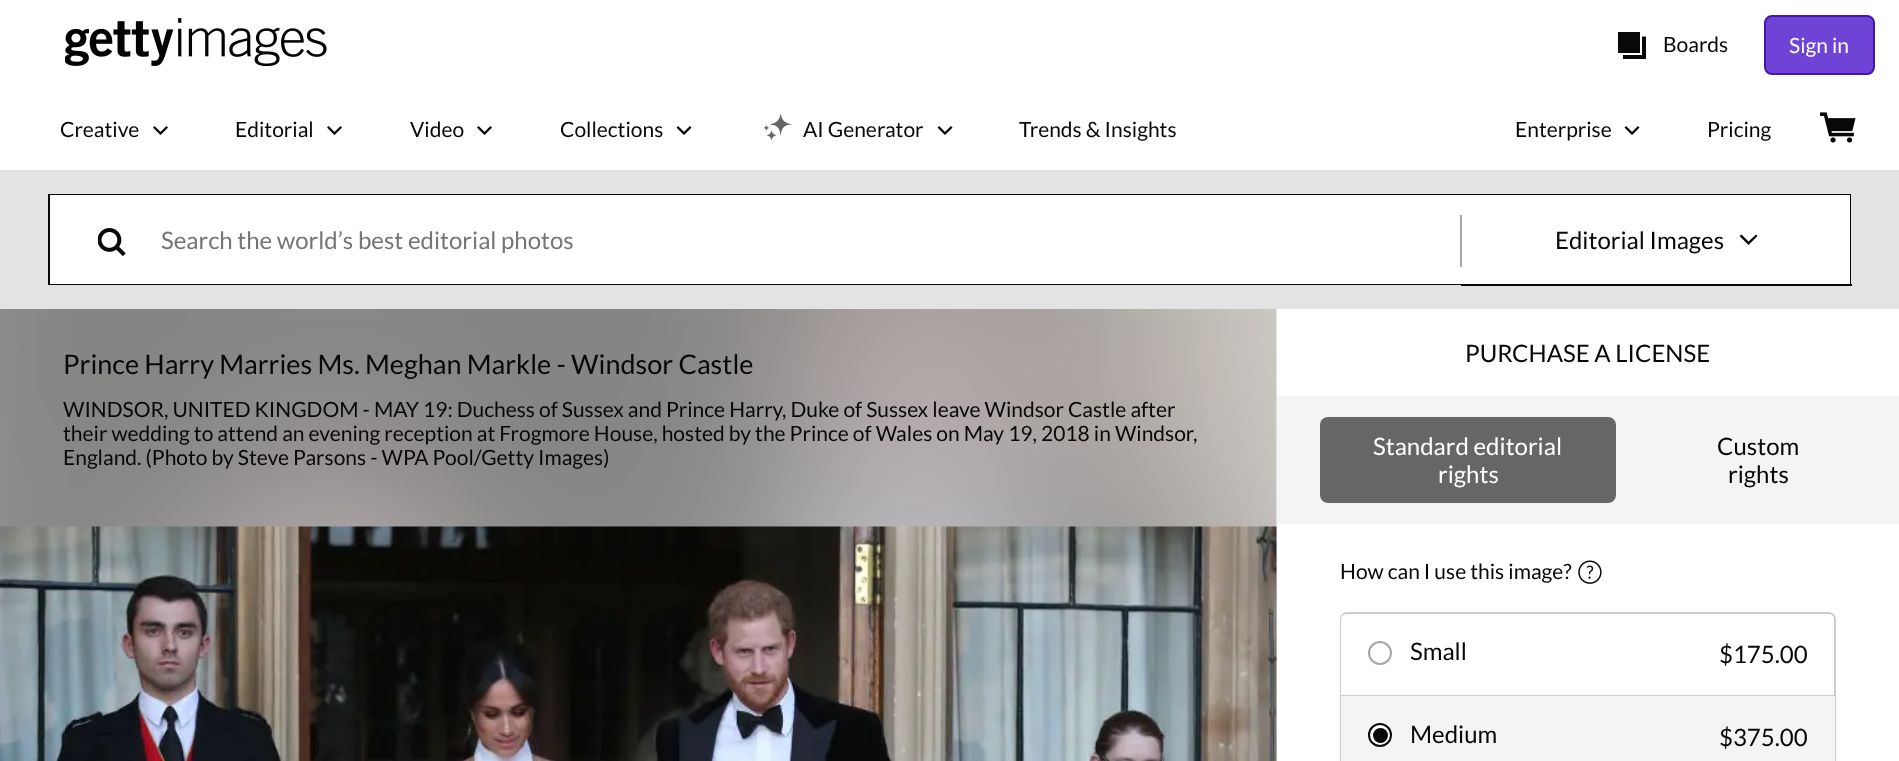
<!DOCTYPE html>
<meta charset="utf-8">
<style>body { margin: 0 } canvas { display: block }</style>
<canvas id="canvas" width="1899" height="761"></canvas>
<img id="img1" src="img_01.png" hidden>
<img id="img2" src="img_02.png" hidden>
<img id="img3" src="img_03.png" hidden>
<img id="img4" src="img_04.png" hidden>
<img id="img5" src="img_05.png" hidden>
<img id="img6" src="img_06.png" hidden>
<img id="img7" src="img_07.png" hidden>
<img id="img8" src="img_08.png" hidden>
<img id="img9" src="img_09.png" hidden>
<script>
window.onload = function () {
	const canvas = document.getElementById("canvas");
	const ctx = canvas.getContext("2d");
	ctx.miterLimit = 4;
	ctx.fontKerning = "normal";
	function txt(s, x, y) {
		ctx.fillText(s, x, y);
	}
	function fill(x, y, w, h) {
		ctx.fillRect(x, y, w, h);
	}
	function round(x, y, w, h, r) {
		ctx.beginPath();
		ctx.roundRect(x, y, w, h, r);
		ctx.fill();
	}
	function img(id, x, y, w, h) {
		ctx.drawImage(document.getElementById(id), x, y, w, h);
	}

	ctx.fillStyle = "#FFFFFF";
	fill(0, 0, 1899, 761);
	img("img1", 65, 18, 262, 49);
	ctx.fillStyle = "#080808";
	fill(1618, 32, 22, 21);
	ctx.beginPath();
	ctx.moveTo(1646, 59);
	ctx.lineTo(1623, 59);
	ctx.lineTo(1623, 55);
	ctx.lineTo(1642, 55);
	ctx.lineTo(1642, 36.5);
	ctx.lineTo(1646, 36.5);
	ctx.closePath();
	ctx.fill();
	ctx.fillStyle = "#6F43D6";
	ctx.beginPath();
	ctx.roundRect(1765, 16, 109, 58, 7);
	ctx.fill();
	ctx.strokeStyle = "#4316AC";
	ctx.lineWidth = 2;
	ctx.stroke();
	img("img2", 153, 126, 15, 9);
	img("img2", 327, 126, 15, 9);
	img("img2", 477, 126, 15, 9);
	img("img3", 676, 126, 16, 9);
	img("img4", 763, 113, 29, 28);
	img("img3", 937, 126, 16, 9);
	img("img3", 1624, 126, 16, 9);
	img("img5", 1820, 112, 36, 31);
	ctx.fillStyle = "#E3E3E3";
	fill(0, 170, 1899, 139);
	ctx.strokeStyle = "#080808";
	ctx.strokeRect(49, 195, 1801, 89);
	ctx.fillStyle = "#FFFFFF";
	fill(50, 195, 1800, 89);
	img("img6", 98, 228, 28, 29);
	ctx.fillStyle = "#A6A6A6";
	fill(1460, 215, 2, 52);
	ctx.fillStyle = "#080808";
	ctx.beginPath();
	ctx.moveTo(1748.5, 245);
	ctx.lineTo(1739.5, 236);
	ctx.lineTo(1741.5, 234.5);
	ctx.lineTo(1748.5, 241.5);
	ctx.lineTo(1756, 234.5);
	ctx.lineTo(1757.5, 236);
	ctx.closePath();
	ctx.fill();
	fill(1461, 285, 390, 1);
	fill(1850, 284, 2, 2);
	img("img7", 0, 309, 1277, 452);
	img("img8", 0, 526, 1277, 235);
	ctx.fillStyle = "#F4F4F4";
	fill(1277, 396, 622, 128);
	ctx.fillStyle = "#666666";
	round(1320, 417, 296, 86, 8);
	img("img9", 1578, 560, 24, 24);
	ctx.fillStyle = "#CCCCCC";
	ctx.beginPath();
	ctx.moveTo(1347, 612);
	ctx.lineTo(1828, 612);
	ctx.bezierCurveTo(1833, 612, 1836, 615, 1836, 620);
	ctx.lineTo(1836, 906);
	ctx.bezierCurveTo(1836, 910, 1833, 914, 1828, 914);
	ctx.lineTo(1347, 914);
	ctx.bezierCurveTo(1343, 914, 1340, 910, 1340, 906);
	ctx.lineTo(1340, 620);
	ctx.bezierCurveTo(1340, 615, 1343, 612, 1347, 612);
	ctx.closePath();
	ctx.moveTo(1347, 614);
	ctx.lineTo(1828, 614);
	ctx.bezierCurveTo(1832, 614, 1834, 616, 1834, 620);
	ctx.lineTo(1834, 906);
	ctx.bezierCurveTo(1834, 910, 1832, 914, 1828, 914);
	ctx.lineTo(1347, 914);
	ctx.bezierCurveTo(1344, 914, 1341, 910, 1341, 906);
	ctx.lineTo(1341, 620);
	ctx.bezierCurveTo(1341, 616, 1344, 614, 1347, 614);
	ctx.closePath();
	ctx.fill("evenodd");
	fill(1341, 695, 494, 1);
	ctx.beginPath();
	ctx.arc(1380, 653, 11, 0, Math.PI * 2);
	ctx.strokeStyle = "#A6A6A6";
	ctx.stroke();
	ctx.fillStyle = "#F4F4F4";
	fill(1341, 696, 494, 65);
	ctx.fillStyle = "#FFFFFF";
	ctx.beginPath();
	ctx.arc(1380, 735, 11, 0, Math.PI * 2);
	ctx.fill();
	ctx.strokeStyle = "#080808";
	ctx.stroke();
	ctx.fillStyle = "#080808";
	ctx.beginPath();
	ctx.arc(1380.5, 735.5, 7.5, 0, Math.PI * 2);
	ctx.fill();
	ctx.font = "21px Lato";
	txt("Boards", 1663, 52);
	ctx.fillStyle = "#FFFFFF";
	txt("Sign in", 1789, 53);
	ctx.fillStyle = "#080808";
	txt("Creative", 60, 137);
	txt("Editorial", 235, 137);
	txt("Video", 410, 137);
	txt("Collections", 560, 137);
	txt("AI Generator", 803, 137);
	txt("Trends & Insights", 1019, 137);
	txt("Enterprise", 1515, 137);
	txt("Pricing", 1707, 137);
	ctx.font = "24px Lato";
	ctx.fillStyle = "#757575";
	txt("Search the world’s best editorial photos", 161, 249);
	ctx.fillStyle = "#080808";
	txt("Editorial Images", 1555, 249);
	ctx.font = "27px Lato";
	txt("Prince Harry Marries Ms. Meghan Markle - Windsor Castle", 63, 374);
	ctx.font = "21px Lato";
	txt("WINDSOR, UNITED KINGDOM - MAY 19: Duchess of Sussex and Prince Harry, Duke of Sussex leave Windsor Castle after", 63, 417);
	txt("their wedding to attend an evening reception at Frogmore House, hosted by the Prince of Wales on May 19, 2018 in Windsor,", 63, 441);
	txt("England. (Photo by Steve Parsons - WPA Pool/Getty Images)", 63, 465);
	ctx.font = "24px Lato";
	txt("PURCHASE A LICENSE", 1465, 362);
	ctx.fillStyle = "#FFFFFF";
	txt("Standard editorial", 1373, 455);
	txt("rights", 1438, 483);
	ctx.fillStyle = "#080808";
	txt("Custom", 1717, 455);
	txt("rights", 1728, 483);
	ctx.font = "21px Lato";
	txt("How can I use this image?", 1340, 579);
	ctx.font = "24px Lato";
	txt("Small", 1410, 660);
	txt("$175.00", 1719, 663);
	txt("Medium", 1410, 743);
	txt("$375.00", 1719, 746);
};
</script>
